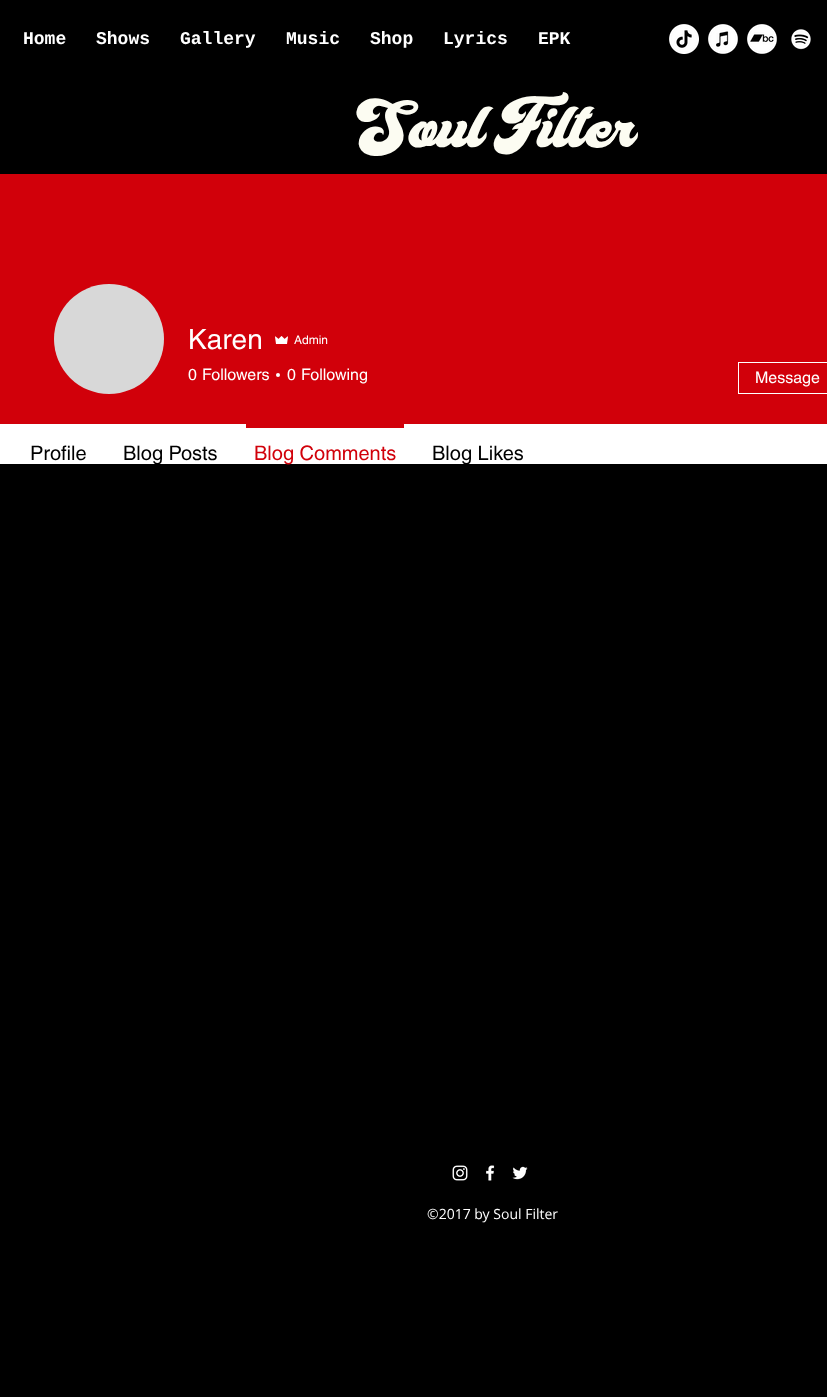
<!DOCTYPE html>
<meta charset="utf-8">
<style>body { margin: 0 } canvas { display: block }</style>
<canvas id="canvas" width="827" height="1397"></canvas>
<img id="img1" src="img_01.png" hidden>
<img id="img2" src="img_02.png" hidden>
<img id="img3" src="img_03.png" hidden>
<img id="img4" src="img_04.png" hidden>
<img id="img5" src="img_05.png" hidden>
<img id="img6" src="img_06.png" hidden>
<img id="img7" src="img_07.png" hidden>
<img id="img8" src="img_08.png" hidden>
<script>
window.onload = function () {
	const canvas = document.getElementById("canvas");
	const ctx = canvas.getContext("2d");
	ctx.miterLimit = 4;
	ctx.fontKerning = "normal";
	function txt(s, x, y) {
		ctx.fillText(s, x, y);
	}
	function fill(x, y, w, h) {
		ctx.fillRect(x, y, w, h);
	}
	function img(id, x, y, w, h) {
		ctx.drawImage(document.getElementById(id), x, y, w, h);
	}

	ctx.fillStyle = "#000000";
	fill(0, 0, 827, 1397);
	img("img1", 669, 24, 30, 30);
	img("img2", 708, 24, 30, 30);
	img("img3", 747, 24, 30, 30);
	img("img4", 791, 29, 20, 21);
	ctx.fillStyle = "#D1000A";
	fill(0, 174, 827, 250);
	ctx.fillStyle = "#D8D8D8";
	ctx.beginPath();
	ctx.arc(109, 339, 55, 0, Math.PI * 2);
	ctx.fill();
	img("img5", 275, 336, 13, 8);
	ctx.fillStyle = "#FFFFFF";
	ctx.beginPath();
	ctx.arc(278, 375, 2, 0, Math.PI * 2);
	ctx.fill();
	ctx.strokeStyle = "#FFFFFF";
	ctx.strokeRect(738.5, 362.5, 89, 31);
	fill(0, 424, 827, 40);
	ctx.fillStyle = "#D1000A";
	fill(246, 424, 158, 4);
	img("img6", 452, 1165, 16, 16);
	img("img7", 486, 1165, 9, 16);
	img("img8", 512, 1166, 16, 14);
	ctx.font = "bold 18px Liberation Mono";
	ctx.fillStyle = "#FFFFFF";
	txt("Home", 23, 44);
	txt("Shows", 96, 44);
	txt("Gallery", 180, 44);
	txt("Music", 286, 44);
	txt("Shop", 370, 44);
	txt("Lyrics", 443, 44);
	txt("EPK", 538, 44);
	ctx.font = "70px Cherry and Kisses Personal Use";
	ctx.fillStyle = "#FCFCF2";
	txt("Soul Filter", 355, 146);
	ctx.font = "28px helvetica";
	ctx.fillStyle = "#FFFFFF";
	txt("Karen", 188, 349);
	ctx.font = "12px helvetica";
	txt("Admin", 294, 344);
	ctx.font = "16px helvetica";
	txt("0", 188, 380);
	txt("Followers", 202, 380);
	txt("0", 287, 380);
	txt("Following", 301, 380);
	txt("Message", 755, 383);
	ctx.font = "20px helvetica";
	ctx.fillStyle = "#000000";
	txt("Profile", 30, 460);
	txt("Blog Posts", 123, 460);
	ctx.fillStyle = "#D1000A";
	txt("Blog Comments", 254, 460);
	ctx.fillStyle = "#000000";
	txt("Blog Likes", 432, 460);
	ctx.font = "14px Open Sans";
	ctx.fillStyle = "#FFFFFF";
	txt("©2017 by Soul Filter", 427, 1219);
};
</script>
